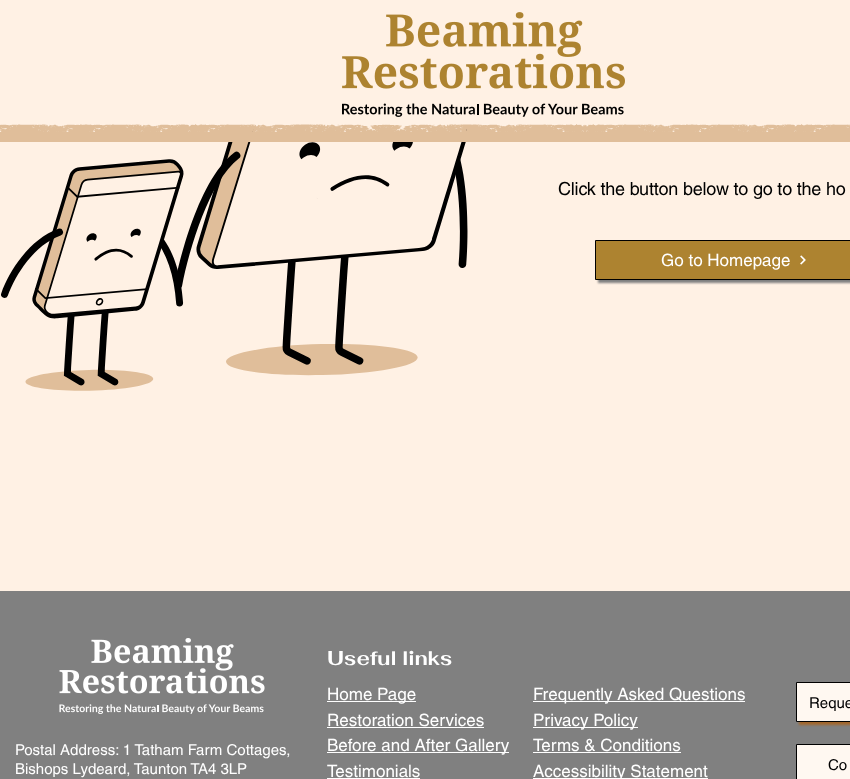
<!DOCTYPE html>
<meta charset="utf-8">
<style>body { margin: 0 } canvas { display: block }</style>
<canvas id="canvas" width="850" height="779"></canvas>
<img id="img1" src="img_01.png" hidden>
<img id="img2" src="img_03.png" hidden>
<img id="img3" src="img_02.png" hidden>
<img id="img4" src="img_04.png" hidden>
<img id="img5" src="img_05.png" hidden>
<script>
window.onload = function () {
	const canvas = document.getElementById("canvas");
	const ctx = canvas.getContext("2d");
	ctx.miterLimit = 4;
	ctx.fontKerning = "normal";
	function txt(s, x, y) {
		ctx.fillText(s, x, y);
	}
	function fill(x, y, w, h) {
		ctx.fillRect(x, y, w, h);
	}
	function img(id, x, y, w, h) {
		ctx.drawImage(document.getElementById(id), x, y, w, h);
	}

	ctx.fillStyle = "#FFF1E4";
	fill(0, 0, 850, 779);
	img("img1", 342, 12, 283, 105);
	img("img2", 1, 127, 467, 264);
	img("img3", 0, 124, 850, 18);
	ctx.fillStyle = "#808080";
	ctx.filter = "blur(1px)";
	ctx.beginPath();
	ctx.rect(598, 243, 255, 40);
	ctx.fill();
	ctx.filter = "none";
	ctx.fillStyle = "#AD8330";
	ctx.beginPath();
	ctx.rect(595.5, 240.5, 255, 39);
	ctx.fill();
	ctx.strokeStyle = "#000000";
	ctx.stroke();
	img("img4", 800, 255, 6, 10);
	ctx.fillStyle = "#808080";
	fill(0, 591, 850, 188);
	img("img5", 59, 638, 206, 76);
	ctx.fillStyle = "#FFFFFF";
	fill(327, 701, 89, 1);
	fill(327, 727, 157, 1);
	fill(327, 752, 182, 1);
	fill(327, 778, 93, 1);
	fill(533, 701, 212, 1);
	fill(533, 727, 105, 1);
	fill(533, 752, 148, 1);
	fill(533, 778, 175, 1);
	ctx.fillStyle = "#A2672D";
	ctx.filter = "blur(1px)";
	ctx.beginPath();
	ctx.rect(799, 685, 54, 40);
	ctx.fill();
	ctx.filter = "none";
	ctx.fillStyle = "#FFF8F1";
	ctx.beginPath();
	ctx.rect(796.5, 682.5, 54, 39);
	ctx.fill();
	ctx.stroke();
	ctx.beginPath();
	ctx.rect(796.5, 744.5, 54, 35);
	ctx.fill();
	ctx.stroke();
	ctx.letterSpacing = "-0.2px";
	ctx.font = "18px helvetica";
	ctx.fillStyle = "#000000";
	txt("Click the button below to go to the ho", 558, 195);
	ctx.letterSpacing = "0px";
	ctx.font = "17px helvetica";
	ctx.fillStyle = "#FFFFFF";
	txt("Go to Homepage", 661, 266);
	ctx.font = "15px helvetica";
	txt("Postal Address: 1 Tatham Farm Cottages,", 15, 755);
	txt("Bishops Lydeard, Taunton TA4 3LP", 15, 774);
	ctx.letterSpacing = "-0.25px";
	ctx.font = "bold 20px Fahkwang";
	txt("Useful links", 327, 665);
	ctx.letterSpacing = "0px";
	ctx.font = "17px helvetica";
	txt("Home Page", 327, 700);
	txt("Restoration Services", 327, 726);
	txt("Before and After Gallery", 327, 751);
	txt("Testimonials", 327, 777);
	txt("Frequently Asked Questions", 533, 700);
	txt("Privacy Policy", 533, 726);
	txt("Terms & Conditions", 533, 751);
	txt("Accessibility Statement", 533, 777);
	ctx.font = "15px helvetica";
	ctx.fillStyle = "#000000";
	txt("Reque", 809, 708);
	txt("Co", 828, 770);
};
</script>
